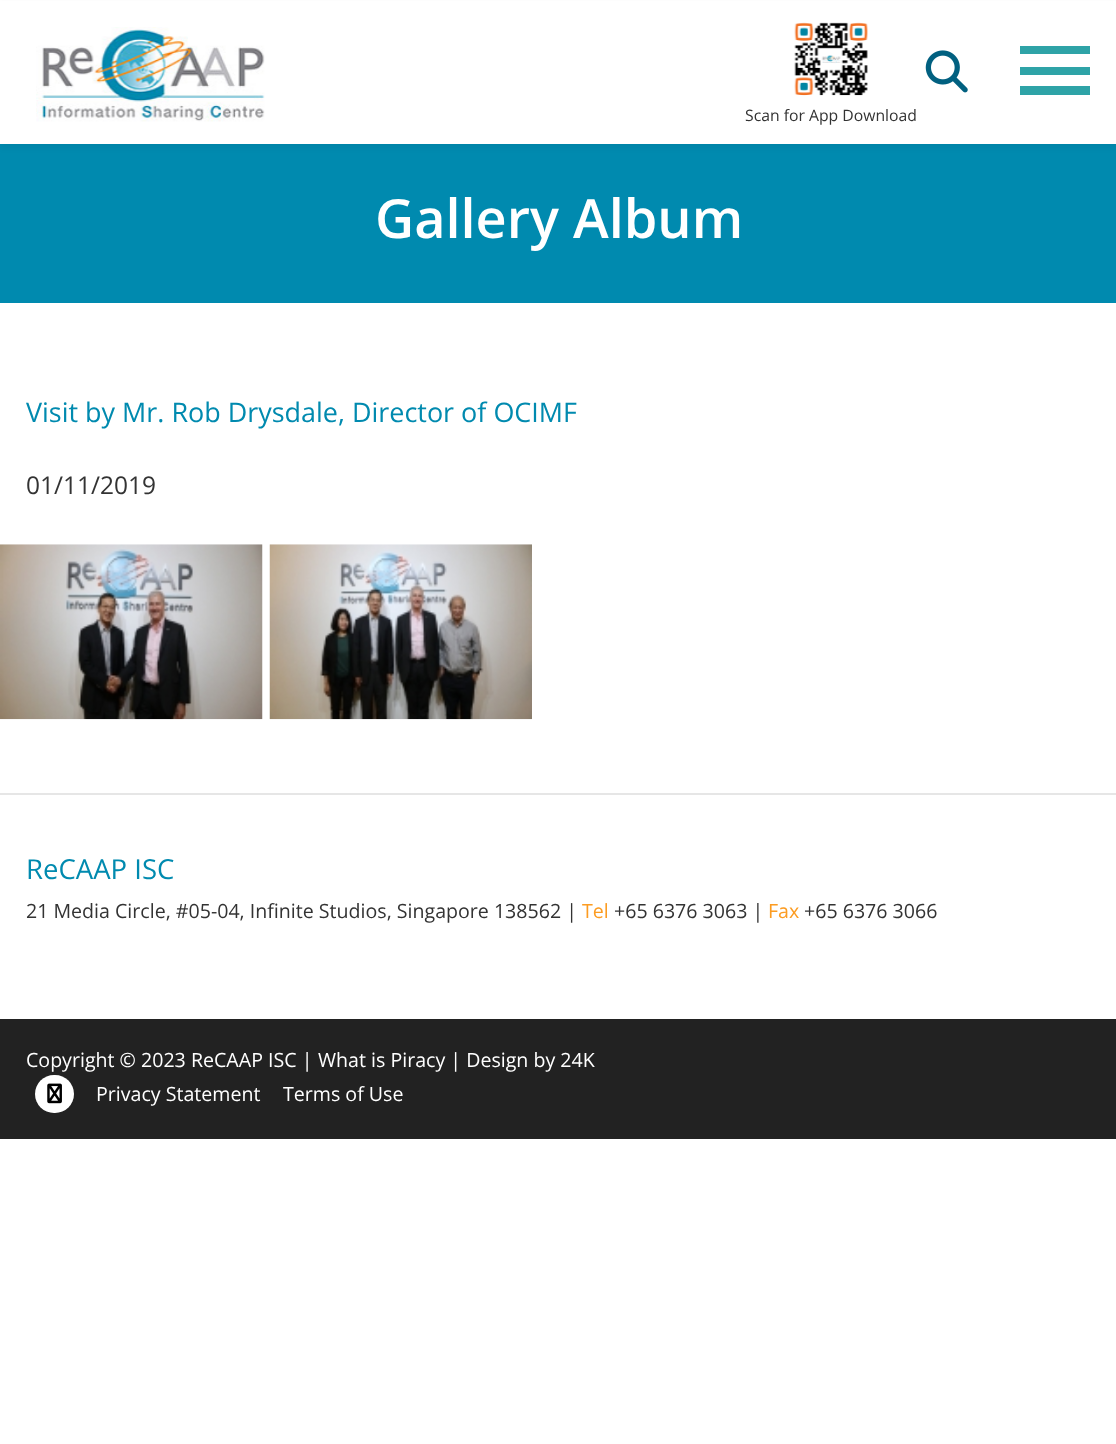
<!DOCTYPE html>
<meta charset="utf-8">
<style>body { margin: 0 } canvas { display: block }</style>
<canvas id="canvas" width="1116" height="1444"></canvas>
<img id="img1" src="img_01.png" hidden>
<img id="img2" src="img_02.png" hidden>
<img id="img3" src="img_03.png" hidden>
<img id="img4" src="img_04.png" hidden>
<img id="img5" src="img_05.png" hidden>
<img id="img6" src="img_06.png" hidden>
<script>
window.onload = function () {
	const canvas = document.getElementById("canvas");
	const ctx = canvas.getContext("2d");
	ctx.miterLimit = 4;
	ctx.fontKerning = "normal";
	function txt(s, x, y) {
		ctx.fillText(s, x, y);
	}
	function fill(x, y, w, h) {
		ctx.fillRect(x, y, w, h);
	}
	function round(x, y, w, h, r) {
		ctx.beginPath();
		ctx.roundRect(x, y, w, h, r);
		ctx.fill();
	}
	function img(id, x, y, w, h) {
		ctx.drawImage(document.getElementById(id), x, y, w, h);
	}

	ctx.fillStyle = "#FFFFFF";
	fill(0, 0, 1116, 1444);
	ctx.fillStyle = "#008AAF";
	fill(0, 144, 1116, 159);
	ctx.fillStyle = "rgba(0, 0, 0, 0.05)";
	ctx.filter = "blur(3.5px)";
	ctx.beginPath();
	ctx.rect(0, 4, 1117, 143);
	ctx.fill();
	ctx.filter = "none";
	ctx.fillStyle = "#FFFFFF";
	fill(0, 1, 1116, 143);
	img("img1", 36, 27, 229, 95);
	ctx.fillStyle = "#2EA3A7";
	fill(1020, 46, 70, 8);
	fill(1020, 67, 70, 8);
	fill(1020, 86, 70, 9);
	img("img2", 925, 50, 43, 43);
	img("img3", 794, 22, 74, 74);
	ctx.fillStyle = "#E6E6E6";
	fill(0, 793, 1116, 2);
	img("img4", 0, 544, 263, 176);
	img("img5", 269, 544, 263, 176);
	ctx.fillStyle = "#222222";
	fill(0, 1019, 1116, 120);
	ctx.fillStyle = "#FFFFFF";
	round(35, 1075, 39, 38, 19);
	img("img6", 47, 1083, 15, 21);
	ctx.font = "15.75px Open Sans";
	ctx.fillStyle = "#333333";
	txt("Scan for App Download", 745, 121);
	ctx.font = "600 54px Open Sans";
	ctx.fillStyle = "#FFFFFF";
	txt("Gallery Album", 375, 238);
	ctx.font = "26.95px Open Sans";
	ctx.fillStyle = "#008AAF";
	txt("Visit by Mr. Rob Drysdale, Director of OCIMF", 26, 422);
	ctx.font = "24.5px Open Sans";
	ctx.fillStyle = "#333333";
	txt("01/11/2019", 26, 494);
	ctx.font = "27.5px Open Sans";
	ctx.fillStyle = "#008AAF";
	txt("ReCAAP ISC", 26, 879);
	ctx.font = "19.6px Open Sans";
	ctx.fillStyle = "#333333";
	txt("21 Media Circle, #05-04, Infinite Studios, Singapore 138562 |", 26, 918);
	ctx.fillStyle = "#FC9C22";
	txt("Tel", 582, 918);
	ctx.fillStyle = "#333333";
	txt("+65 6376 3063 |", 614, 918);
	ctx.fillStyle = "#FC9C22";
	txt("Fax", 768, 918);
	ctx.fillStyle = "#333333";
	txt("+65 6376 3066", 804, 918);
	ctx.fillStyle = "#FFFFFF";
	txt("Copyright © 2023 ReCAAP ISC |", 26, 1067);
	txt("What is Piracy | Design by 24K", 318, 1067);
	txt("Privacy Statement", 96, 1101);
	txt("Terms of Use", 283, 1101);
};
</script>
